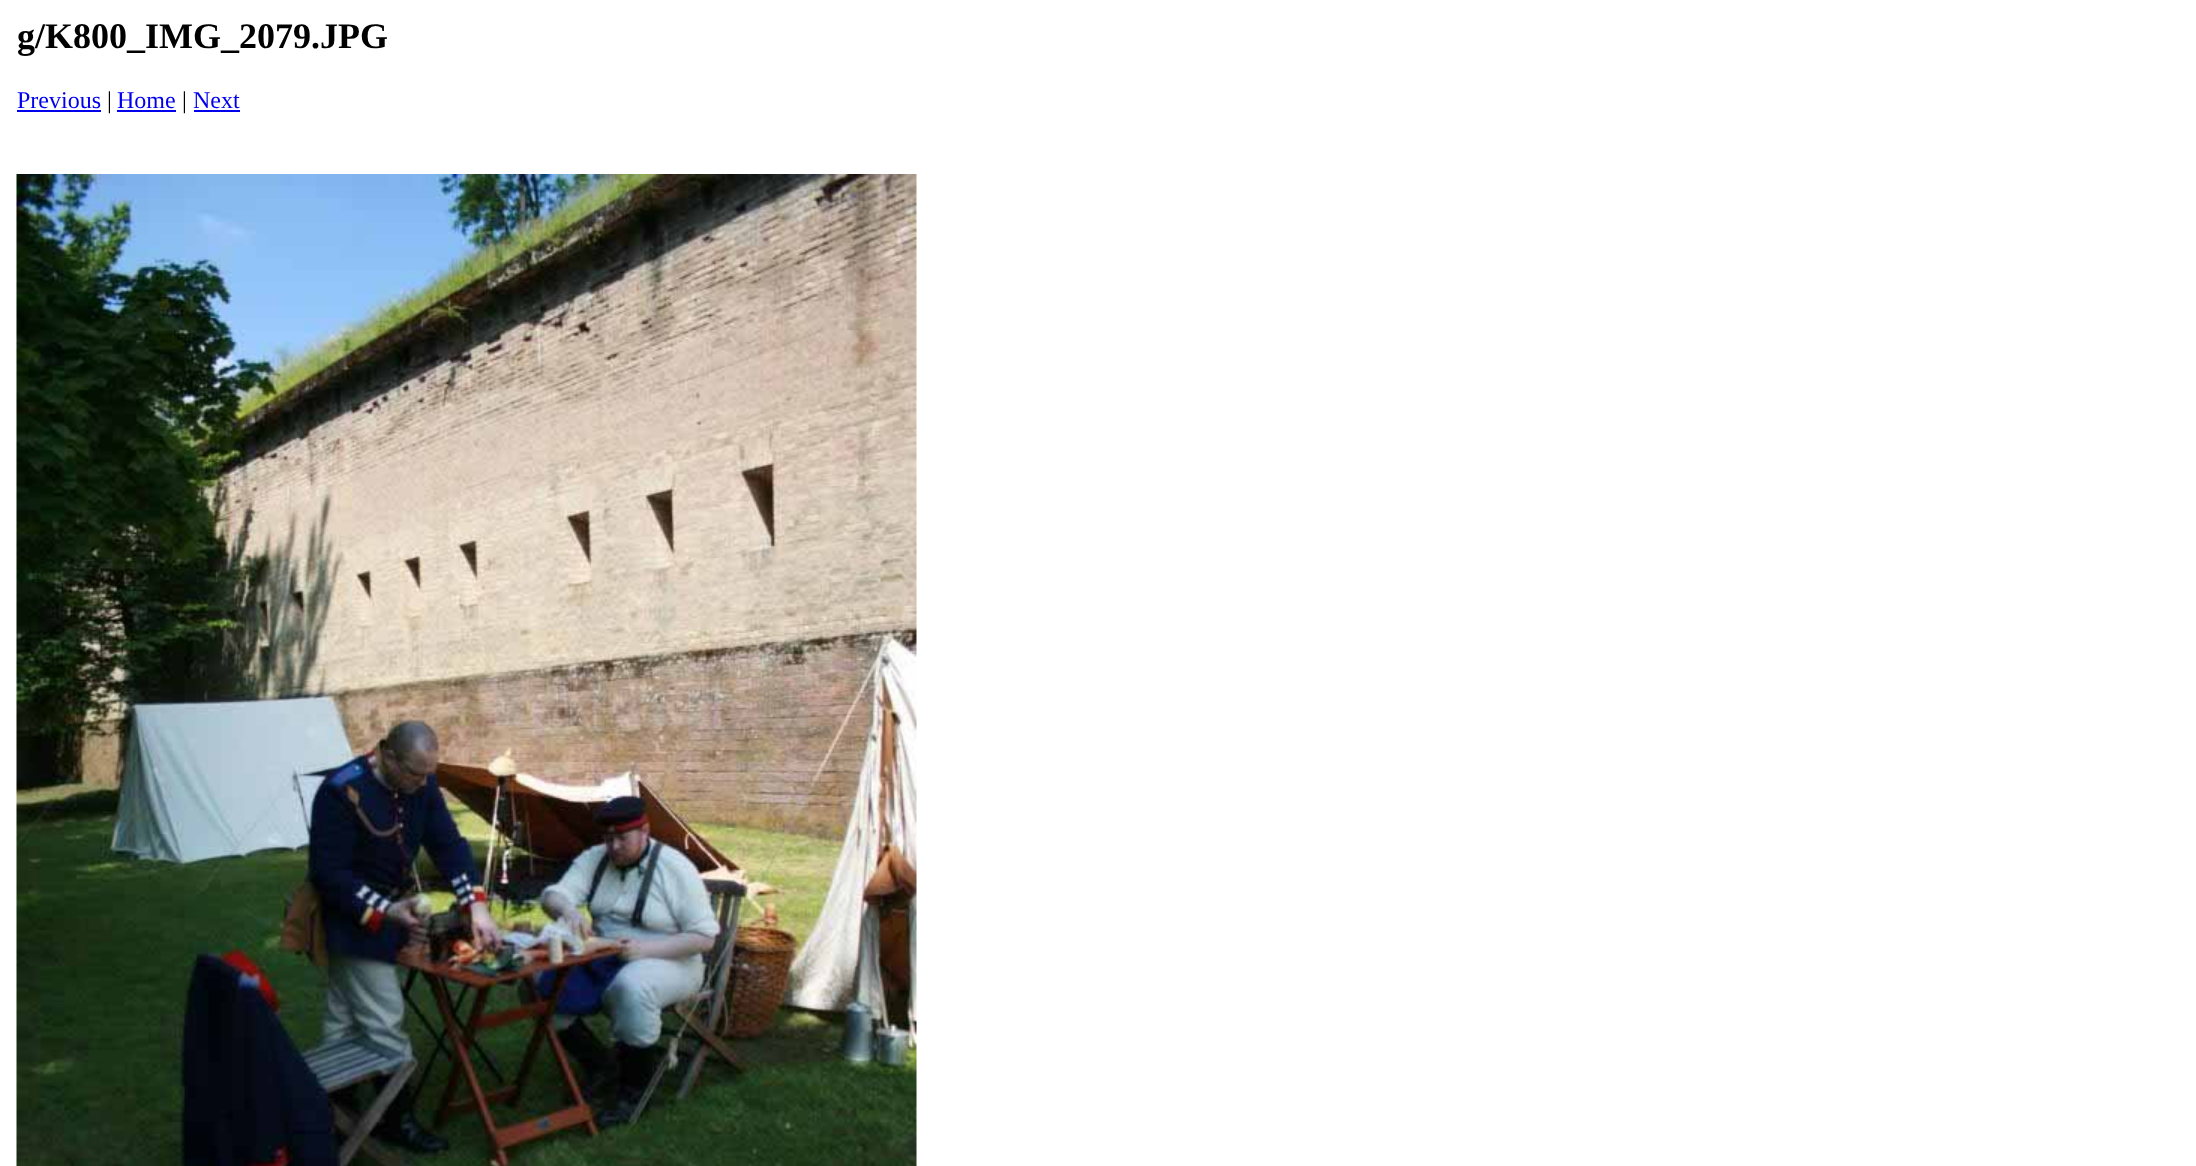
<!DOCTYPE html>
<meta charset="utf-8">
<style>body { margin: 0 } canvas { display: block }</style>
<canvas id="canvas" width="2196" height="1166"></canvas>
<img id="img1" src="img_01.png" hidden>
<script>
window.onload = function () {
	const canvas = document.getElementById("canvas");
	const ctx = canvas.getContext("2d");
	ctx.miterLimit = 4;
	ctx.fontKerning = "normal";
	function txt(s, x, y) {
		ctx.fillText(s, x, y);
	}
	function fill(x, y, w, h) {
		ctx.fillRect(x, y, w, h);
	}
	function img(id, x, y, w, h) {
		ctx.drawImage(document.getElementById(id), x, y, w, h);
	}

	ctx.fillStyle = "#FFFFFF";
	fill(0, 0, 2196, 1166);
	ctx.fillStyle = "#0000EE";
	fill(17, 110, 84, 2);
	fill(117, 110, 59, 2);
	fill(194, 110, 46, 2);
	img("img1", 16, 174, 901, 992);
	ctx.font = "bold 36px Liberation Serif";
	ctx.fillStyle = "#000000";
	txt("g/K800_IMG_2079.JPG", 17, 48);
	ctx.font = "24px Liberation Serif";
	ctx.fillStyle = "#0000EE";
	txt("Previous", 17, 108);
	ctx.fillStyle = "#000000";
	txt("|", 107, 108);
	ctx.fillStyle = "#0000EE";
	txt("Home", 117, 108);
	ctx.fillStyle = "#000000";
	txt("|", 182, 108);
	ctx.fillStyle = "#0000EE";
	txt("Next", 193, 108);
};
</script>
